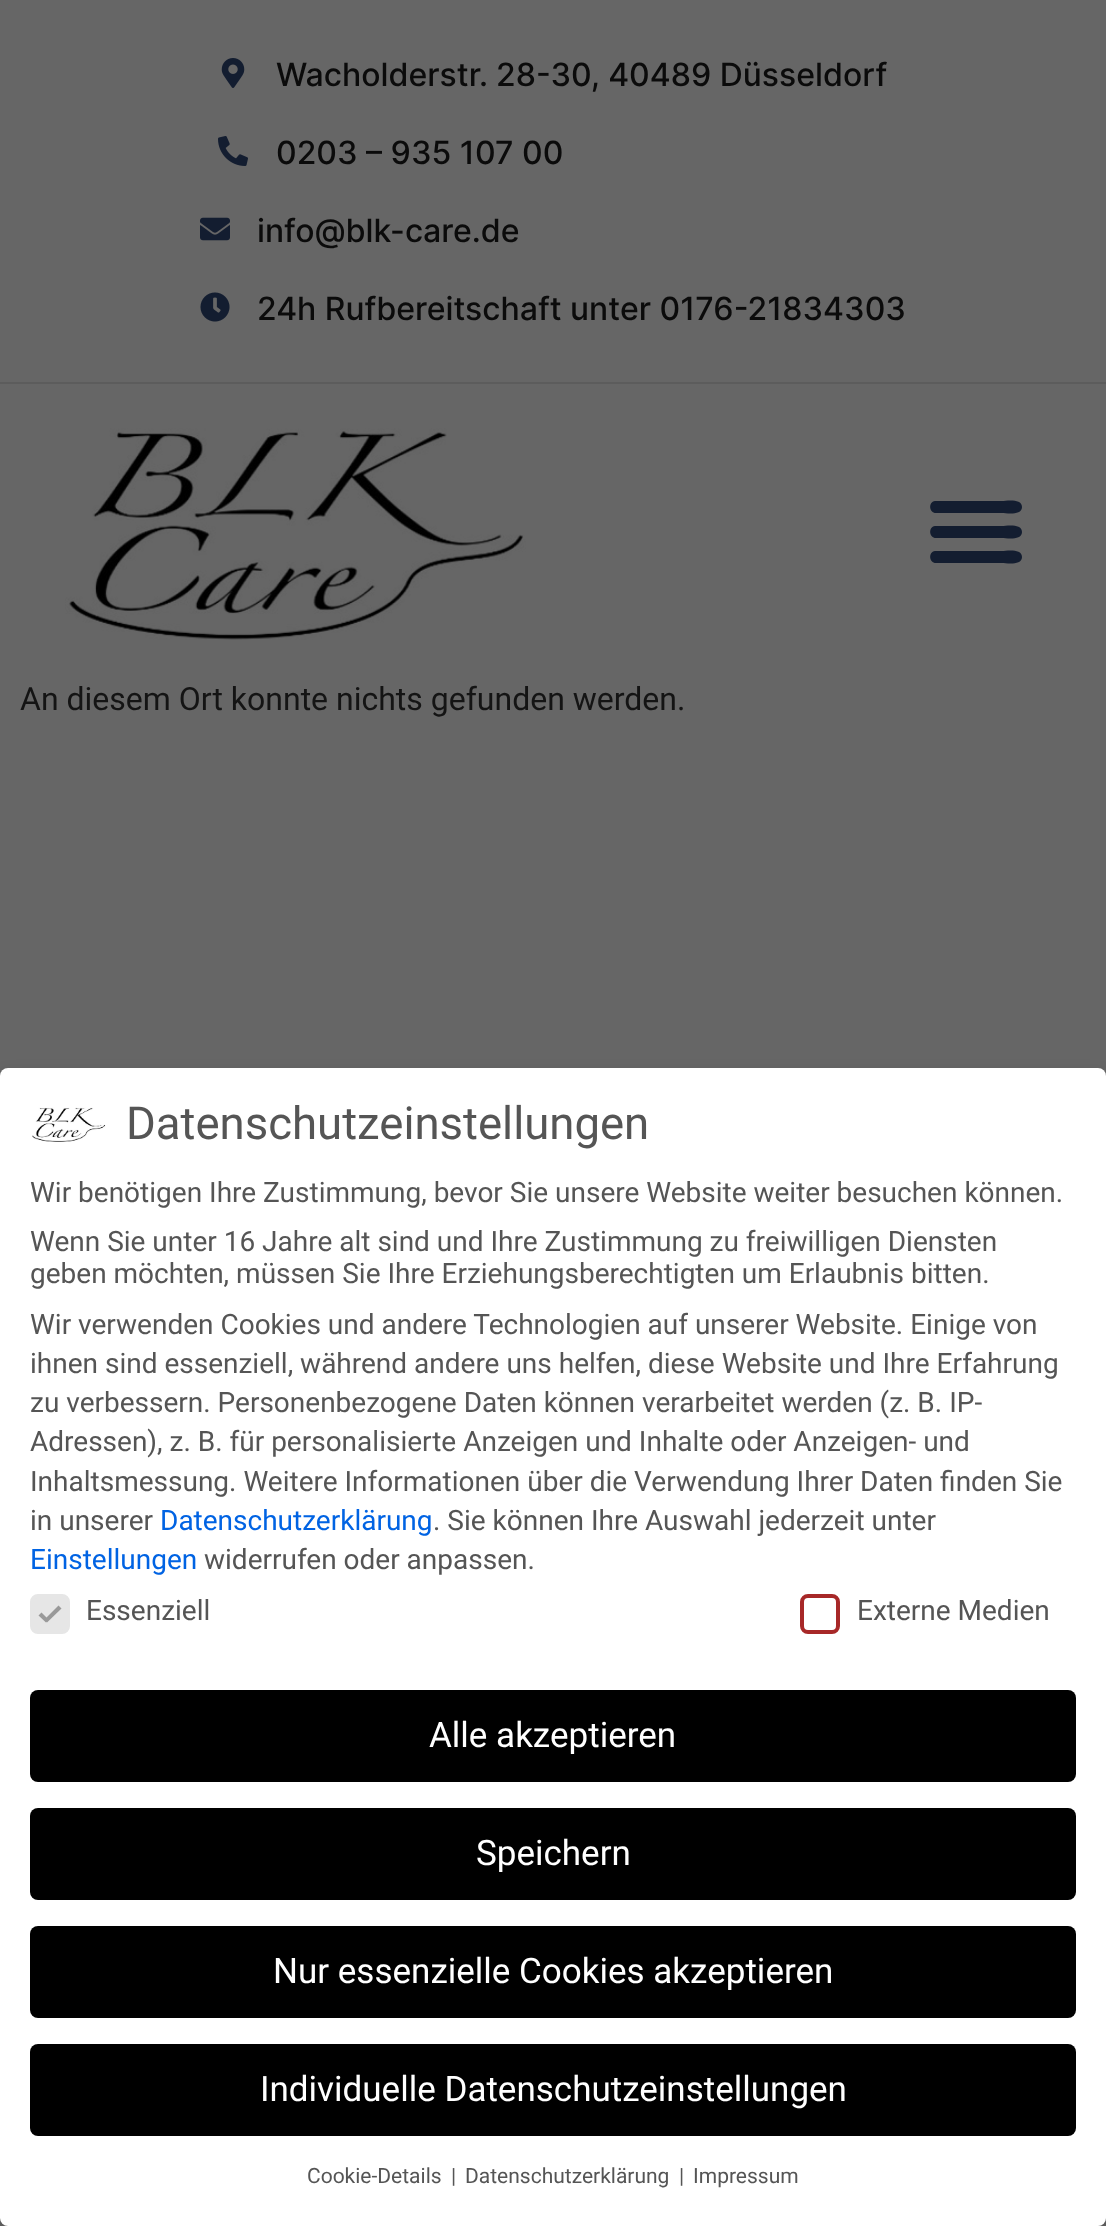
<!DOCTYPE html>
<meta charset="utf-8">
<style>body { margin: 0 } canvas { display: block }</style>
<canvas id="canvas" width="1106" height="2226"></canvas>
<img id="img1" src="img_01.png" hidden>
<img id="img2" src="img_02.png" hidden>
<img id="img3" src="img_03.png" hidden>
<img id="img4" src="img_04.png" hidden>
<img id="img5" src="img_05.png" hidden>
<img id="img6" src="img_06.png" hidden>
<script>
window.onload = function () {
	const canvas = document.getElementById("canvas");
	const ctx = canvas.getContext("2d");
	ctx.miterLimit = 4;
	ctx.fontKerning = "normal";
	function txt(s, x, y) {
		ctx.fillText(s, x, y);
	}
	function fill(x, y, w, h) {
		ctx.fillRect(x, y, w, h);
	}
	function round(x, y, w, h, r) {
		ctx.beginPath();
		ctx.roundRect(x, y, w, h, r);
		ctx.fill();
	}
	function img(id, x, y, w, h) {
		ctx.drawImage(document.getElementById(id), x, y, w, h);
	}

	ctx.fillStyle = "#666666";
	fill(0, 0, 1106, 2226);
	ctx.fillStyle = "#5C5C5C";
	fill(0, 382, 1106, 2);
	img("img1", 221, 58, 24, 30);
	img("img2", 218, 136, 30, 30);
	img("img3", 200, 217, 30, 24);
	img("img4", 200, 292, 30, 30);
	img("img5", 65, 428, 461, 212);
	ctx.fillStyle = "#131D30";
	ctx.beginPath();
	ctx.moveTo(936, 513);
	ctx.lineTo(1002, 513);
	ctx.bezierCurveTo(1006, 513, 1022, 516, 1022, 507);
	ctx.bezierCurveTo(1022, 498, 1006, 501, 1002, 501);
	ctx.lineTo(935, 501);
	ctx.bezierCurveTo(928, 502, 929, 513, 936, 513);
	ctx.closePath();
	ctx.moveTo(936, 538);
	ctx.lineTo(1002, 538);
	ctx.bezierCurveTo(1006, 538, 1022, 541, 1022, 532);
	ctx.bezierCurveTo(1022, 523, 1006, 526, 1002, 526);
	ctx.lineTo(935, 526);
	ctx.bezierCurveTo(928, 527, 929, 538, 936, 538);
	ctx.closePath();
	ctx.moveTo(936, 563);
	ctx.lineTo(1002, 563);
	ctx.bezierCurveTo(1006, 563, 1022, 566, 1022, 557);
	ctx.bezierCurveTo(1022, 548, 1006, 551, 1002, 551);
	ctx.lineTo(935, 551);
	ctx.bezierCurveTo(928, 552, 929, 563, 936, 563);
	ctx.closePath();
	ctx.fill();
	ctx.fillStyle = "rgba(0, 0, 0, 0.2)";
	ctx.filter = "blur(8px)";
	ctx.beginPath();
	ctx.roundRect(0, 1076, 1106, 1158, 8);
	ctx.fill();
	ctx.filter = "none";
	ctx.fillStyle = "#FFFFFF";
	round(0, 1068, 1106, 1158, 8);
	img("img6", 32, 1107, 74, 35);
	ctx.fillStyle = "#E6E6E6";
	ctx.beginPath();
	ctx.roundRect(32, 1596, 36, 36, 6);
	ctx.fill();
	ctx.strokeStyle = "#E6E6E6";
	ctx.lineWidth = 4;
	ctx.stroke();
	ctx.fillStyle = "#999999";
	ctx.beginPath();
	ctx.moveTo(58.5, 1605.5);
	ctx.lineTo(61.5, 1608.5);
	ctx.lineTo(47, 1622.5);
	ctx.lineTo(44.5, 1619.5);
	ctx.closePath();
	ctx.fill();
	ctx.beginPath();
	ctx.moveTo(41.5, 1612.5);
	ctx.lineTo(48.5, 1619.5);
	ctx.lineTo(46, 1622.5);
	ctx.lineTo(38.5, 1615.5);
	ctx.closePath();
	ctx.fill();
	ctx.beginPath();
	ctx.roundRect(802, 1596, 36, 36, 6);
	ctx.strokeStyle = "#A72828";
	ctx.stroke();
	ctx.fillStyle = "#000000";
	round(30, 1690, 1046, 92, 8);
	round(30, 1808, 1046, 92, 8);
	round(30, 1926, 1046, 92, 8);
	round(30, 2044, 1046, 92, 8);
	ctx.font = "500 32px Inter";
	ctx.fillStyle = "#0B0B0B";
	txt("Wacholderstr. 28-30, 40489 Düsseldorf", 276, 86);
	txt("0203 – 935 107 00", 276, 164);
	txt("info@blk-care.de", 257, 242);
	txt("24h Rufbereitschaft unter 0176-21834303", 257, 320);
	ctx.font = "32px Roboto";
	ctx.fillStyle = "#141414";
	txt("An diesem Ort konnte nichts gefunden werden.", 20, 710);
	ctx.font = "45.5px Roboto";
	ctx.fillStyle = "#555555";
	txt("Datenschutzeinstellungen", 126, 1139);
	ctx.font = "28px Roboto";
	txt("Wir benötigen Ihre Zustimmung, bevor Sie unsere Website weiter besuchen können.", 30, 1202);
	txt("Wenn Sie unter 16 Jahre alt sind und Ihre Zustimmung zu freiwilligen Diensten", 30, 1251);
	txt("geben möchten, müssen Sie Ihre Erziehungsberechtigten um Erlaubnis bitten.", 30, 1283);
	txt("Wir verwenden Cookies und andere Technologien auf unserer Website. Einige von", 30, 1334);
	txt("ihnen sind essenziell, während andere uns helfen, diese Website und Ihre Erfahrung", 30, 1373);
	txt("zu verbessern. Personenbezogene Daten können verarbeitet werden (z. B. IP-", 30, 1412);
	txt("Adressen), z. B. für personalisierte Anzeigen und Inhalte oder Anzeigen- und", 30, 1451);
	txt("Inhaltsmessung. Weitere Informationen über die Verwendung Ihrer Daten finden Sie", 30, 1491);
	txt("in unserer", 30, 1530);
	ctx.fillStyle = "#0063E3";
	txt("Datenschutzerklärung", 160, 1530);
	ctx.fillStyle = "#555555";
	txt(". Sie können Ihre Auswahl jederzeit unter", 433, 1530);
	ctx.fillStyle = "#0063E3";
	txt("Einstellungen", 30, 1569);
	ctx.fillStyle = "#555555";
	txt("widerrufen oder anpassen.", 204, 1569);
	txt("Essenziell", 86, 1620);
	txt("Externe Medien", 857, 1620);
	ctx.font = "35px Roboto";
	ctx.fillStyle = "#FFFFFF";
	txt("Alle akzeptieren", 429, 1747);
	txt("Speichern", 476, 1865);
	txt("Nur essenzielle Cookies akzeptieren", 273, 1983);
	txt("Individuelle Datenschutzeinstellungen", 260, 2101);
	ctx.font = "21px Roboto";
	ctx.fillStyle = "#555555";
	txt("Cookie-Details", 307, 2183);
	txt("|", 451, 2183);
	txt("Datenschutzerklärung", 465, 2183);
	txt("|", 679, 2183);
	txt("Impressum", 693, 2183);
};
</script>
